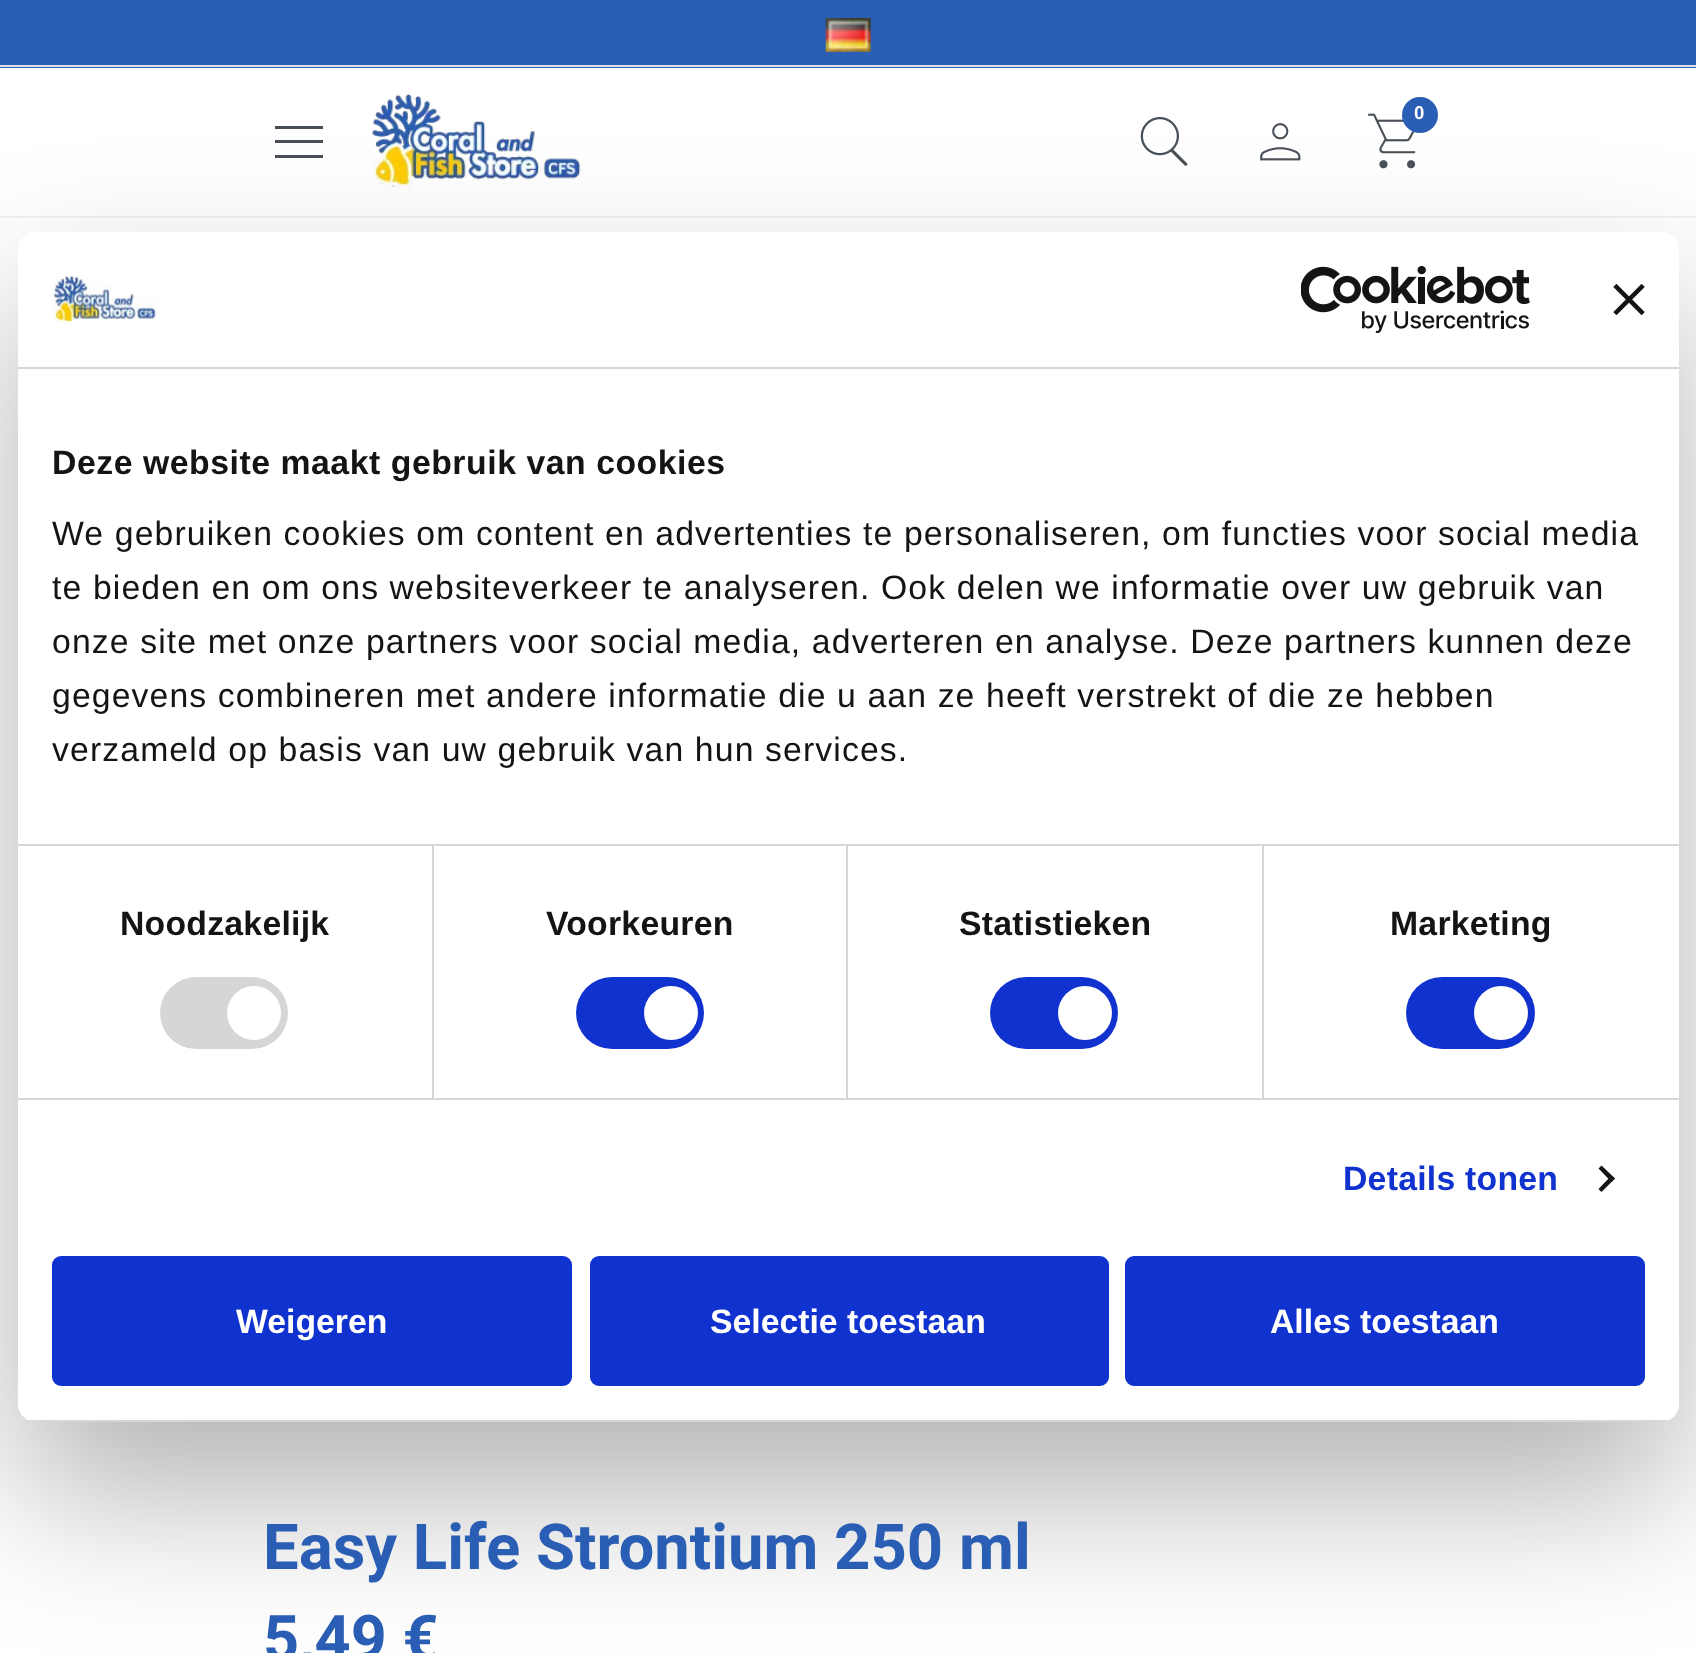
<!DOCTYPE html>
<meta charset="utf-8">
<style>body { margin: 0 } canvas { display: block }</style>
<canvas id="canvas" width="1696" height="1653"></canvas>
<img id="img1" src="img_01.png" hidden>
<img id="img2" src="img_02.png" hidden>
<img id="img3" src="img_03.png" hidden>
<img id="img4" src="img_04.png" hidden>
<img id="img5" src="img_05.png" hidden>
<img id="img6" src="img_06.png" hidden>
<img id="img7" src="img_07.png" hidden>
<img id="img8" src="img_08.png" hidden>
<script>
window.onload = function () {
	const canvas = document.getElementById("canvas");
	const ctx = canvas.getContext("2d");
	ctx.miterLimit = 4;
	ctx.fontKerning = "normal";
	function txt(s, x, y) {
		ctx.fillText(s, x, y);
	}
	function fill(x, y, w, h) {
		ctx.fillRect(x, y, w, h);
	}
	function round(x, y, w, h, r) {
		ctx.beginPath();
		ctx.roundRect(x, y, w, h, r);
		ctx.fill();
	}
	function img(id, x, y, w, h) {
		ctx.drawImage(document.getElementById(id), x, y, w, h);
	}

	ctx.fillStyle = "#FFFFFF";
	fill(0, 0, 1696, 1653);
	ctx.fillStyle = "#2A5EB4";
	fill(0, 0, 1696, 68);
	ctx.fillStyle = "#DEE2E6";
	fill(0, 65, 1696, 2);
	img("img1", 825, 18, 46, 34);
	ctx.fillStyle = "#F2F2F2";
	fill(0, 216, 1696, 2);
	img("img2", 372, 94, 209, 94);
	img("img3", 1368, 113, 48, 56);
	ctx.fillStyle = "#2A5EB4";
	ctx.beginPath();
	ctx.arc(1420, 115, 18, 0, Math.PI * 2);
	ctx.fill();
	ctx.fillStyle = "#495057";
	ctx.beginPath();
	ctx.moveTo(275, 158);
	ctx.lineTo(275, 155);
	ctx.lineTo(323, 155);
	ctx.lineTo(323, 158);
	ctx.closePath();
	ctx.moveTo(275, 143);
	ctx.lineTo(275, 140);
	ctx.lineTo(323, 140);
	ctx.lineTo(323, 143);
	ctx.closePath();
	ctx.moveTo(275, 129);
	ctx.lineTo(275, 126);
	ctx.lineTo(323, 126);
	ctx.lineTo(323, 129);
	ctx.closePath();
	ctx.fill();
	img("img4", 1140, 117, 48, 49);
	img("img5", 1260, 123, 41, 38);
	ctx.fillStyle = "rgba(0, 0, 0, 0.3)";
	ctx.filter = "blur(76.5px)";
	ctx.beginPath();
	ctx.roundRect(18, 304, 1661, 1190, 18);
	ctx.fill();
	ctx.filter = "none";
	ctx.fillStyle = "#FFFFFF";
	round(18, 232, 1661, 1190, 18);
	ctx.fillStyle = "#D6D6D6";
	fill(18, 367, 1661, 2);
	img("img6", 52, 275, 104, 48);
	img("img7", 1301, 266, 229, 67);
	img("img8", 1613, 284, 32, 31);
	fill(18, 844, 1661, 2);
	fill(18, 1098, 1661, 2);
	fill(432, 846, 2, 252);
	round(160, 977, 128, 72, 36);
	ctx.fillStyle = "#FFFFFF";
	ctx.beginPath();
	ctx.arc(254, 1013, 27, 0, Math.PI * 2);
	ctx.fill();
	ctx.fillStyle = "#D6D6D6";
	fill(846, 846, 2, 252);
	ctx.fillStyle = "#1032CF";
	round(576, 977, 128, 72, 36);
	ctx.fillStyle = "#FFFFFF";
	ctx.beginPath();
	ctx.arc(671, 1013, 27, 0, Math.PI * 2);
	ctx.fill();
	ctx.fillStyle = "#D6D6D6";
	fill(1262, 846, 2, 252);
	ctx.fillStyle = "#1032CF";
	round(990, 977, 128, 72, 36);
	ctx.fillStyle = "#FFFFFF";
	ctx.beginPath();
	ctx.arc(1085, 1013, 27, 0, Math.PI * 2);
	ctx.fill();
	ctx.fillStyle = "#1032CF";
	round(1406, 977, 129, 72, 36);
	ctx.fillStyle = "#FFFFFF";
	ctx.beginPath();
	ctx.arc(1501, 1013, 27, 0, Math.PI * 2);
	ctx.fill();
	ctx.fillStyle = "#141414";
	ctx.beginPath();
	ctx.moveTo(1601.5, 1165.5);
	ctx.lineTo(1615, 1178.5);
	ctx.lineTo(1611.5, 1182);
	ctx.lineTo(1598.5, 1168.5);
	ctx.closePath();
	ctx.fill();
	ctx.beginPath();
	ctx.moveTo(1611.5, 1175.5);
	ctx.lineTo(1615, 1178.5);
	ctx.lineTo(1601.5, 1192);
	ctx.lineTo(1598.5, 1189);
	ctx.closePath();
	ctx.fill();
	ctx.save();
	ctx.beginPath();
	ctx.roundRect(18, 232, 1661, 1190, 18);
	ctx.clip();
	ctx.fillStyle = "#D6D6D6";
	fill(28, 1420, 1641, 2);
	ctx.restore();
	ctx.fillStyle = "#1032CF";
	ctx.beginPath();
	ctx.roundRect(54.5, 1258.5, 515, 125, 6.5);
	ctx.fill();
	ctx.strokeStyle = "#1032CF";
	ctx.lineWidth = 5;
	ctx.stroke();
	ctx.beginPath();
	ctx.roundRect(592.5, 1258.5, 514, 125, 6.5);
	ctx.fill();
	ctx.stroke();
	ctx.beginPath();
	ctx.roundRect(1127.5, 1258.5, 515, 125, 6.5);
	ctx.fill();
	ctx.stroke();
	ctx.font = "bold 18px Roboto";
	ctx.fillStyle = "#FFFFFF";
	txt("0", 1414, 119);
	ctx.font = "bold 63.4px Roboto";
	ctx.fillStyle = "#2A5EB4";
	txt("Easy Life Strontium 250 ml", 263, 1569);
	ctx.font = "bold 63px Roboto";
	txt("5,49 €", 263, 1660);
	ctx.letterSpacing = "0.55px";
	ctx.font = "bold 33.75px Liberation Sans";
	ctx.fillStyle = "#141414";
	txt("Deze website maakt gebruik van cookies", 52, 474);
	ctx.letterSpacing = "1.12px";
	ctx.font = "33.75px Liberation Sans";
	txt("We gebruiken cookies om content en advertenties te personaliseren, om functies voor social media", 52, 545);
	txt("te bieden en om ons websiteverkeer te analyseren. Ook delen we informatie over uw gebruik van", 52, 599);
	txt("onze site met onze partners voor social media, adverteren en analyse. Deze partners kunnen deze", 52, 653);
	txt("gegevens combineren met andere informatie die u aan ze heeft verstrekt of die ze hebben", 52, 707);
	txt("verzameld op basis van uw gebruik van hun services.", 52, 761);
	ctx.letterSpacing = "0.25px";
	ctx.font = "bold 33.75px Liberation Sans";
	txt("Noodzakelijk", 120, 935);
	txt("Voorkeuren", 546, 935);
	txt("Statistieken", 959, 935);
	txt("Marketing", 1390, 935);
	ctx.fillStyle = "#1032CF";
	txt("Details tonen", 1343, 1190);
	ctx.letterSpacing = "0px";
	ctx.fillStyle = "#FFFFFF";
	txt("Weigeren", 236, 1333);
	txt("Selectie toestaan", 710, 1333);
	txt("Alles toestaan", 1270, 1333);
};
</script>
